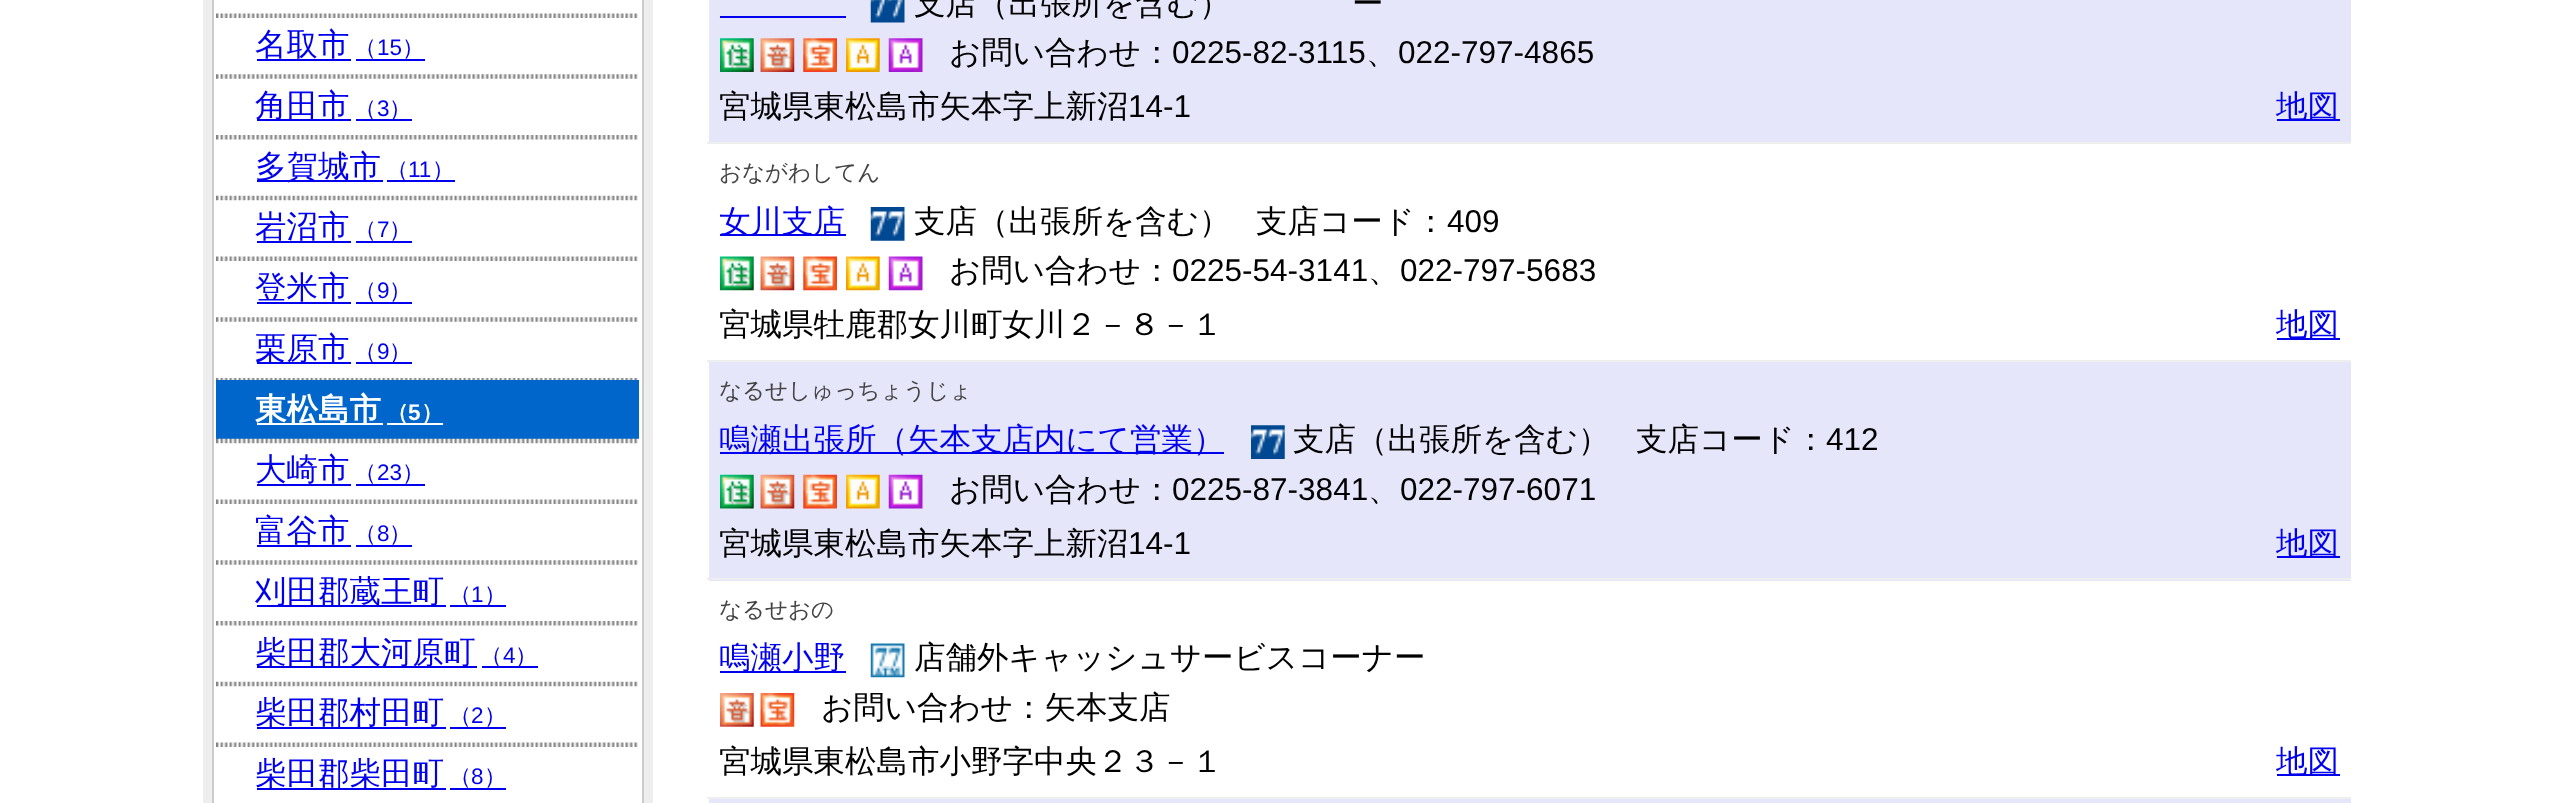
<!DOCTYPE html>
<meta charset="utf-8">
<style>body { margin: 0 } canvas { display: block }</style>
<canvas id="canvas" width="2551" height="803"></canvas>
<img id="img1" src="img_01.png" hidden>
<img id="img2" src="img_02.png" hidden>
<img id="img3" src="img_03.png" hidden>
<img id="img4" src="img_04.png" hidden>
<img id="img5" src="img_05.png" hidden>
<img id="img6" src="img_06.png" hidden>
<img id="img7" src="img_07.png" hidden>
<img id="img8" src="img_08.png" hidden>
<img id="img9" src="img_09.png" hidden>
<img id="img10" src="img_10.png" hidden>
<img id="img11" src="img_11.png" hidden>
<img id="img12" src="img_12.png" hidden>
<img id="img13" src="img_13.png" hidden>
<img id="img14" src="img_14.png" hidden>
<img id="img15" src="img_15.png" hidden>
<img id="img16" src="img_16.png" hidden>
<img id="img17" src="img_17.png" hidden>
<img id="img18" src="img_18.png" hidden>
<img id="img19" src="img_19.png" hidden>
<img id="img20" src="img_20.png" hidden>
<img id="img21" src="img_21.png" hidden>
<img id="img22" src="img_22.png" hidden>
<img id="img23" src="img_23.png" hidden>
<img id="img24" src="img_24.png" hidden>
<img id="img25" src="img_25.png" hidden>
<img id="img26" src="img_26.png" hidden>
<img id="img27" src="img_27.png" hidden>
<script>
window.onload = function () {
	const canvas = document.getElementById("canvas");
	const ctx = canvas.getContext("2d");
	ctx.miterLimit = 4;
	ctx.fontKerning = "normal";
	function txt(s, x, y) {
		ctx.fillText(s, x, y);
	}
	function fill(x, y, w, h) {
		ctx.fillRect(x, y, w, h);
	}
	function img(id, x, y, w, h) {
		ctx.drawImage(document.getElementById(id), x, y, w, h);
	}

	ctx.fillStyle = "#FFFFFF";
	fill(0, 0, 2551, 803);
	ctx.fillStyle = "#EEEEEE";
	fill(203, 0, 450, 803);
	ctx.fillStyle = "#FFFFFF";
	ctx.beginPath();
	ctx.rect(213, -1, 430, 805);
	ctx.fill();
	ctx.strokeStyle = "#CCCCCC";
	ctx.lineWidth = 2;
	ctx.stroke();
	img("img1", 216, 13, 422, 5);
	ctx.fillStyle = "#0000EE";
	fill(257, 59, 94, 2);
	fill(356, 59, 69, 2);
	img("img2", 216, 74, 422, 5);
	fill(257, 119, 94, 2);
	fill(356, 119, 56, 2);
	img("img3", 216, 135, 422, 5);
	fill(257, 180, 126, 2);
	fill(387, 180, 68, 2);
	img("img4", 216, 195, 422, 6);
	fill(257, 241, 94, 2);
	fill(356, 241, 56, 2);
	img("img1", 216, 256, 422, 5);
	fill(257, 302, 94, 2);
	fill(356, 302, 56, 2);
	img("img2", 216, 317, 422, 5);
	fill(257, 362, 94, 2);
	fill(356, 362, 56, 2);
	img("img5", 216, 378, 422, 2);
	ctx.fillStyle = "#0066CC";
	fill(216, 380, 423, 59);
	ctx.fillStyle = "#FFFFFF";
	fill(257, 423, 126, 2);
	fill(387, 423, 56, 2);
	img("img6", 216, 438, 423, 6);
	ctx.fillStyle = "#0000EE";
	fill(257, 484, 94, 2);
	fill(356, 484, 69, 2);
	img("img1", 216, 499, 422, 5);
	fill(257, 545, 94, 2);
	fill(356, 545, 56, 2);
	img("img2", 216, 560, 422, 5);
	fill(257, 605, 189, 2);
	fill(450, 605, 56, 2);
	img("img3", 216, 621, 422, 5);
	fill(257, 666, 220, 2);
	fill(482, 666, 56, 2);
	img("img4", 216, 681, 422, 6);
	fill(257, 727, 189, 2);
	fill(450, 727, 56, 2);
	img("img1", 216, 742, 422, 5);
	fill(257, 788, 189, 2);
	fill(450, 788, 56, 2);
	ctx.fillStyle = "#E6E6FA";
	fill(709, 0, 1642, 142);
	img("img7", 870, 0, 35, 23);
	ctx.fillStyle = "#0000EE";
	fill(720, 16, 126, 2);
	img("img8", 720, 38, 34, 34);
	img("img9", 760, 38, 35, 34);
	img("img10", 803, 38, 34, 34);
	img("img11", 846, 38, 34, 34);
	img("img12", 888, 38, 35, 34);
	ctx.fillStyle = "#EEEEEE";
	fill(707, 142, 1644, 2);
	ctx.fillStyle = "#0000EE";
	fill(2277, 119, 63, 2);
	fill(720, 234, 126, 2);
	img("img13", 870, 207, 35, 34);
	img("img14", 720, 256, 34, 35);
	img("img15", 760, 256, 35, 35);
	img("img16", 803, 256, 34, 35);
	img("img17", 846, 256, 34, 35);
	img("img18", 888, 256, 35, 35);
	ctx.fillStyle = "#EEEEEE";
	fill(707, 360, 1644, 2);
	ctx.fillStyle = "#0000EE";
	fill(2277, 338, 63, 2);
	ctx.fillStyle = "#E6E6FA";
	fill(709, 362, 1642, 219);
	ctx.fillStyle = "#0000EE";
	fill(720, 452, 504, 2);
	img("img19", 1251, 425, 34, 34);
	img("img20", 720, 474, 34, 35);
	img("img21", 760, 474, 35, 35);
	img("img22", 803, 474, 34, 35);
	img("img23", 846, 474, 34, 35);
	img("img24", 888, 474, 35, 35);
	ctx.fillStyle = "#EEEEEE";
	fill(707, 578, 1644, 2);
	ctx.fillStyle = "#0000EE";
	fill(2277, 556, 63, 2);
	fill(720, 671, 126, 2);
	img("img25", 870, 643, 35, 35);
	img("img26", 720, 693, 34, 34);
	img("img27", 760, 693, 35, 34);
	ctx.fillStyle = "#EEEEEE";
	fill(707, 797, 1644, 2);
	ctx.fillStyle = "#0000EE";
	fill(2277, 774, 63, 2);
	ctx.fillStyle = "#E6E6FA";
	fill(709, 799, 1642, 4);
	ctx.font = "500 31.5px WenQuanYi Zen Hei";
	ctx.fillStyle = "#0000EE";
	txt("名取市", 255, 55);
	ctx.font = "500 22.5px WenQuanYi Zen Hei";
	txt("（", 354, 55);
	ctx.font = "22.5px Liberation Sans";
	txt("15", 377, 55);
	ctx.font = "500 22.5px WenQuanYi Zen Hei";
	txt("）", 402, 55);
	ctx.font = "500 31.5px WenQuanYi Zen Hei";
	txt("角田市", 255, 116);
	ctx.font = "500 22.5px WenQuanYi Zen Hei";
	txt("（", 354, 116);
	ctx.font = "22.5px Liberation Sans";
	txt("3", 377, 116);
	ctx.font = "500 22.5px WenQuanYi Zen Hei";
	txt("）", 389, 116);
	ctx.font = "500 31.5px WenQuanYi Zen Hei";
	txt("多賀城市", 255, 177);
	ctx.font = "500 22.5px WenQuanYi Zen Hei";
	txt("（", 386, 177);
	ctx.font = "22.5px Liberation Sans";
	txt("11", 408, 177);
	ctx.font = "500 22.5px WenQuanYi Zen Hei";
	txt("）", 432, 177);
	ctx.font = "500 31.5px WenQuanYi Zen Hei";
	txt("岩沼市", 255, 237);
	ctx.font = "500 22.5px WenQuanYi Zen Hei";
	txt("（", 354, 237);
	ctx.font = "22.5px Liberation Sans";
	txt("7", 377, 237);
	ctx.font = "500 22.5px WenQuanYi Zen Hei";
	txt("）", 389, 237);
	ctx.font = "500 31.5px WenQuanYi Zen Hei";
	txt("登米市", 255, 298);
	ctx.font = "500 22.5px WenQuanYi Zen Hei";
	txt("（", 354, 298);
	ctx.font = "22.5px Liberation Sans";
	txt("9", 377, 298);
	ctx.font = "500 22.5px WenQuanYi Zen Hei";
	txt("）", 389, 298);
	ctx.font = "500 31.5px WenQuanYi Zen Hei";
	txt("栗原市", 255, 359);
	ctx.font = "500 22.5px WenQuanYi Zen Hei";
	txt("（", 354, 359);
	ctx.font = "22.5px Liberation Sans";
	txt("9", 377, 359);
	ctx.font = "500 22.5px WenQuanYi Zen Hei";
	txt("）", 389, 359);
	ctx.font = "bold 31.5px WenQuanYi Zen Hei";
	ctx.fillStyle = "#FFFFFF";
	txt("東松島市", 255, 420);
	ctx.font = "bold 22.5px WenQuanYi Zen Hei";
	txt("（", 386, 420);
	ctx.font = "bold 22.5px Liberation Sans";
	txt("5", 408, 420);
	ctx.font = "bold 22.5px WenQuanYi Zen Hei";
	txt("）", 421, 420);
	ctx.font = "500 31.5px WenQuanYi Zen Hei";
	ctx.fillStyle = "#0000EE";
	txt("大崎市", 255, 480);
	ctx.font = "500 22.5px WenQuanYi Zen Hei";
	txt("（", 354, 480);
	ctx.font = "22.5px Liberation Sans";
	txt("23", 377, 480);
	ctx.font = "500 22.5px WenQuanYi Zen Hei";
	txt("）", 402, 480);
	ctx.font = "500 31.5px WenQuanYi Zen Hei";
	txt("富谷市", 255, 541);
	ctx.font = "500 22.5px WenQuanYi Zen Hei";
	txt("（", 354, 541);
	ctx.font = "22.5px Liberation Sans";
	txt("8", 377, 541);
	ctx.font = "500 22.5px WenQuanYi Zen Hei";
	txt("）", 389, 541);
	ctx.font = "500 31.5px WenQuanYi Zen Hei";
	txt("刈田郡蔵王町", 255, 602);
	ctx.font = "500 22.5px WenQuanYi Zen Hei";
	txt("（", 449, 602);
	ctx.font = "22.5px Liberation Sans";
	txt("1", 471, 602);
	ctx.font = "500 22.5px WenQuanYi Zen Hei";
	txt("）", 484, 602);
	ctx.font = "500 31.5px WenQuanYi Zen Hei";
	txt("柴田郡大河原町", 255, 663);
	ctx.font = "500 22.5px WenQuanYi Zen Hei";
	txt("（", 480, 663);
	ctx.font = "22.5px Liberation Sans";
	txt("4", 503, 663);
	ctx.font = "500 22.5px WenQuanYi Zen Hei";
	txt("）", 515, 663);
	ctx.font = "500 31.5px WenQuanYi Zen Hei";
	txt("柴田郡村田町", 255, 723);
	ctx.font = "500 22.5px WenQuanYi Zen Hei";
	txt("（", 449, 723);
	ctx.font = "22.5px Liberation Sans";
	txt("2", 471, 723);
	ctx.font = "500 22.5px WenQuanYi Zen Hei";
	txt("）", 484, 723);
	ctx.font = "500 31.5px WenQuanYi Zen Hei";
	txt("柴田郡柴田町", 255, 784);
	ctx.font = "500 22.5px WenQuanYi Zen Hei";
	txt("（", 449, 784);
	ctx.font = "22.5px Liberation Sans";
	txt("8", 471, 784);
	ctx.font = "500 22.5px WenQuanYi Zen Hei";
	txt("）", 484, 784);
	ctx.font = "500 31.5px WenQuanYi Zen Hei";
	ctx.fillStyle = "#000000";
	txt("支店（出張所を含む）", 914, 14);
	txt("ー", 1352, 14);
	txt("お問い合わせ：", 949, 63);
	ctx.font = "31.5px Liberation Sans";
	txt("0225-82-3115", 1172, 63);
	ctx.font = "500 31.5px WenQuanYi Zen Hei";
	txt("、", 1366, 63);
	ctx.font = "31.5px Liberation Sans";
	txt("022-797-4865", 1398, 63);
	ctx.font = "500 31.5px WenQuanYi Zen Hei";
	txt("宮城県東松島市矢本字上新沼", 719, 117);
	ctx.font = "31.5px Liberation Sans";
	txt("14-1", 1128, 117);
	ctx.font = "500 31.5px WenQuanYi Zen Hei";
	ctx.fillStyle = "#0000EE";
	txt("地図", 2276, 117);
	ctx.font = "500 22.5px WenQuanYi Zen Hei";
	ctx.fillStyle = "#444444";
	txt("おながわしてん", 719, 180);
	ctx.save();
	ctx.beginPath();
	ctx.rect(720, 196, 1508, 52);
	ctx.clip();
	ctx.font = "500 31.5px WenQuanYi Zen Hei";
	ctx.fillStyle = "#0000EE";
	txt("女川支店", 719, 232);
	ctx.restore();
	ctx.font = "500 31.5px WenQuanYi Zen Hei";
	ctx.fillStyle = "#000000";
	txt("支店（出張所を含む）", 914, 232);
	txt("支店コード：", 1256, 232);
	ctx.font = "31.5px Liberation Sans";
	txt("409", 1447, 232);
	ctx.font = "500 31.5px WenQuanYi Zen Hei";
	txt("お問い合わせ：", 949, 281);
	ctx.font = "31.5px Liberation Sans";
	txt("0225-54-3141", 1172, 281);
	ctx.font = "500 31.5px WenQuanYi Zen Hei";
	txt("、", 1368, 281);
	ctx.font = "31.5px Liberation Sans";
	txt("022-797-5683", 1400, 281);
	ctx.font = "500 31.5px WenQuanYi Zen Hei";
	txt("宮城県牡鹿郡女川町女川２－８－１", 719, 335);
	ctx.fillStyle = "#0000EE";
	txt("地図", 2276, 335);
	ctx.font = "500 22.5px WenQuanYi Zen Hei";
	ctx.fillStyle = "#444444";
	txt("なるせしゅっちょうじょ", 719, 398);
	ctx.font = "500 31.5px WenQuanYi Zen Hei";
	ctx.fillStyle = "#0000EE";
	txt("鳴瀬出張所（矢本支店内にて営業）", 719, 450);
	ctx.fillStyle = "#000000";
	txt("支店（出張所を含む）", 1293, 450);
	txt("支店コード：", 1636, 450);
	ctx.font = "31.5px Liberation Sans";
	txt("412", 1826, 450);
	ctx.font = "500 31.5px WenQuanYi Zen Hei";
	txt("お問い合わせ：", 949, 500);
	ctx.font = "31.5px Liberation Sans";
	txt("0225-87-3841", 1172, 500);
	ctx.font = "500 31.5px WenQuanYi Zen Hei";
	txt("、", 1368, 500);
	ctx.font = "31.5px Liberation Sans";
	txt("022-797-6071", 1400, 500);
	ctx.font = "500 31.5px WenQuanYi Zen Hei";
	txt("宮城県東松島市矢本字上新沼", 719, 554);
	ctx.font = "31.5px Liberation Sans";
	txt("14-1", 1128, 554);
	ctx.font = "500 31.5px WenQuanYi Zen Hei";
	ctx.fillStyle = "#0000EE";
	txt("地図", 2276, 554);
	ctx.font = "500 22.5px WenQuanYi Zen Hei";
	ctx.fillStyle = "#444444";
	txt("なるせおの", 719, 617);
	ctx.font = "500 31.5px WenQuanYi Zen Hei";
	ctx.fillStyle = "#0000EE";
	txt("鳴瀬小野", 719, 668);
	ctx.fillStyle = "#000000";
	txt("店舗外キャッシュサービスコーナー", 914, 668);
	txt("お問い合わせ：矢本支店", 821, 718);
	txt("宮城県東松島市小野字中央２３－１", 719, 772);
	ctx.fillStyle = "#0000EE";
	txt("地図", 2276, 772);
};
</script>
